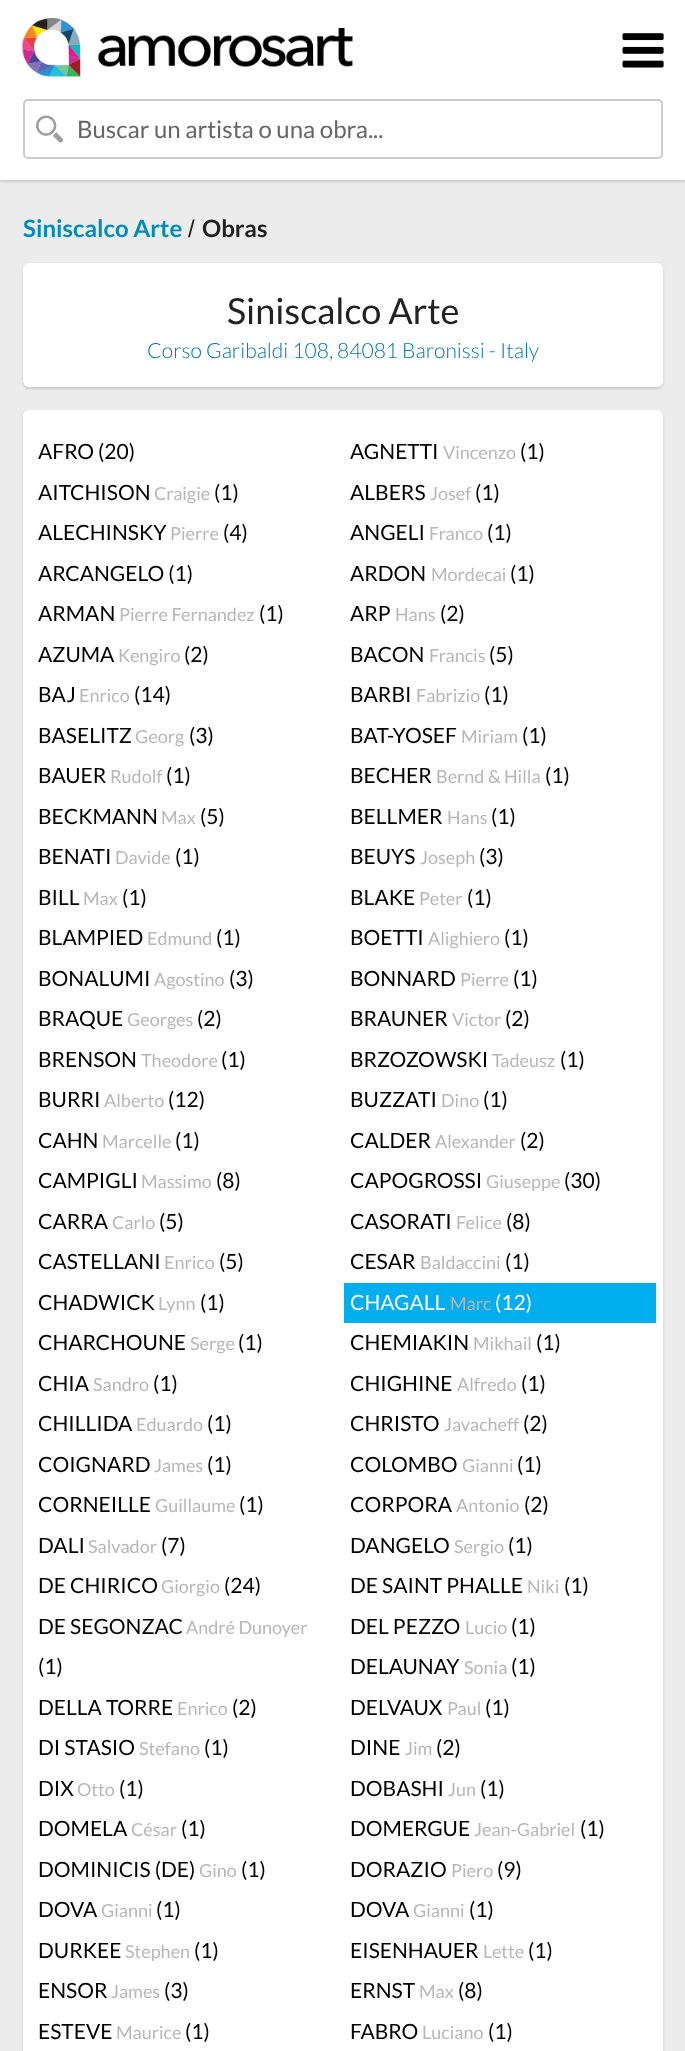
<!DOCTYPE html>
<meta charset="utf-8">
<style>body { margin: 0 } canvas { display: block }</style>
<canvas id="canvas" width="685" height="2051"></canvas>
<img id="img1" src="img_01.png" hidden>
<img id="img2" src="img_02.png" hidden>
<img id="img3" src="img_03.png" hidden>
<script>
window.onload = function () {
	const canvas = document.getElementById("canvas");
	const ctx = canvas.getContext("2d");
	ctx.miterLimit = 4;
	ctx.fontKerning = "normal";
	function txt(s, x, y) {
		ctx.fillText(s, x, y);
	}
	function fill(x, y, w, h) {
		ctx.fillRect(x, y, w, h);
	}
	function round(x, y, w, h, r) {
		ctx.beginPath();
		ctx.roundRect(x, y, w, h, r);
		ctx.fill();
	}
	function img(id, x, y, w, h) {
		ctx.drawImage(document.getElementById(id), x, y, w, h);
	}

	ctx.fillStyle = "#ECECEC";
	fill(0, 0, 685, 2051);
	ctx.fillStyle = "#CCCCCC";
	ctx.filter = "blur(1px)";
	ctx.beginPath();
	ctx.rect(0, 2, 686, 180);
	ctx.fill();
	ctx.filter = "none";
	ctx.fillStyle = "#FFFFFF";
	fill(0, 0, 685, 180);
	img("img1", 22, 18, 331, 59);
	img("img2", 622, 33, 42, 35);
	img("img3", 36, 115, 27, 28);
	ctx.beginPath();
	ctx.roundRect(24, 100, 638, 58, 4);
	ctx.strokeStyle = "#CCCCCC";
	ctx.lineWidth = 2;
	ctx.stroke();
	ctx.fillStyle = "#CCCCCC";
	ctx.filter = "blur(1px)";
	ctx.beginPath();
	ctx.roundRect(23, 264, 640, 125, 6);
	ctx.fill();
	ctx.filter = "none";
	ctx.fillStyle = "#FFFFFF";
	round(23, 263, 640, 124, 6);
	ctx.fillStyle = "#CCCCCC";
	ctx.filter = "blur(1px)";
	ctx.beginPath();
	ctx.roundRect(23, 411, 640, 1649, 6);
	ctx.fill();
	ctx.filter = "none";
	ctx.fillStyle = "#FFFFFF";
	round(23, 410, 640, 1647, 6);
	ctx.fillStyle = "#00AEEF";
	fill(344, 1283, 312, 40);
	ctx.font = "24px Lato";
	ctx.fillStyle = "#666666";
	txt("Buscar un artista o una obra...", 77, 138);
	ctx.font = "bold 24px Lato";
	ctx.fillStyle = "#008CBA";
	txt("Siniscalco Arte", 23, 237);
	ctx.font = "24px Liberation Sans";
	ctx.fillStyle = "#222222";
	txt("/", 188, 237);
	ctx.font = "bold 24px Lato";
	txt("Obras", 202, 237);
	ctx.font = "36px Lato";
	txt("Siniscalco Arte", 227, 324);
	ctx.font = "300 21px Lato";
	ctx.fillStyle = "#0075A1";
	txt("Corso Garibaldi 108, 84081 Baronissi - Italy", 147, 358);
	ctx.font = "21px Lato";
	ctx.fillStyle = "#000000";
	txt("AFRO (20)", 38, 459);
	txt("AGNETTI", 350, 459);
	ctx.font = "18px Lato";
	ctx.fillStyle = "#B7B7B7";
	txt("Vincenzo", 443, 459);
	ctx.font = "21px Lato";
	ctx.fillStyle = "#000000";
	txt("(1)", 520, 459);
	txt("AITCHISON", 38, 500);
	ctx.font = "18px Lato";
	ctx.fillStyle = "#B7B7B7";
	txt("Craigie", 154, 500);
	ctx.font = "21px Lato";
	ctx.fillStyle = "#000000";
	txt("(1)", 214, 500);
	txt("ALBERS", 350, 500);
	ctx.font = "18px Lato";
	ctx.fillStyle = "#B7B7B7";
	txt("Josef", 430, 500);
	ctx.font = "21px Lato";
	ctx.fillStyle = "#000000";
	txt("(1)", 475, 500);
	txt("ALECHINSKY", 38, 540);
	ctx.font = "18px Lato";
	ctx.fillStyle = "#B7B7B7";
	txt("Pierre", 170, 540);
	ctx.font = "21px Lato";
	ctx.fillStyle = "#000000";
	txt("(4)", 223, 540);
	txt("ANGELI", 350, 540);
	ctx.font = "18px Lato";
	ctx.fillStyle = "#B7B7B7";
	txt("Franco", 429, 540);
	ctx.font = "21px Lato";
	ctx.fillStyle = "#000000";
	txt("(1)", 487, 540);
	txt("ARCANGELO (1)", 38, 581);
	txt("ARDON", 350, 581);
	ctx.font = "18px Lato";
	ctx.fillStyle = "#B7B7B7";
	txt("Mordecai", 431, 581);
	ctx.font = "21px Lato";
	ctx.fillStyle = "#000000";
	txt("(1)", 510, 581);
	txt("ARMAN", 38, 621);
	ctx.font = "18px Lato";
	ctx.fillStyle = "#B7B7B7";
	txt("Pierre Fernandez", 119, 621);
	ctx.font = "21px Lato";
	ctx.fillStyle = "#000000";
	txt("(1)", 259, 621);
	txt("ARP", 350, 621);
	ctx.font = "18px Lato";
	ctx.fillStyle = "#B7B7B7";
	txt("Hans", 395, 621);
	ctx.font = "21px Lato";
	ctx.fillStyle = "#000000";
	txt("(2)", 440, 621);
	txt("AZUMA", 38, 662);
	ctx.font = "18px Lato";
	ctx.fillStyle = "#B7B7B7";
	txt("Kengiro", 118, 662);
	ctx.font = "21px Lato";
	ctx.fillStyle = "#000000";
	txt("(2)", 184, 662);
	txt("BACON", 350, 662);
	ctx.font = "18px Lato";
	ctx.fillStyle = "#B7B7B7";
	txt("Francis", 429, 662);
	ctx.font = "21px Lato";
	ctx.fillStyle = "#000000";
	txt("(5)", 489, 662);
	txt("BAJ", 38, 702);
	ctx.font = "18px Lato";
	ctx.fillStyle = "#B7B7B7";
	txt("Enrico", 79, 702);
	ctx.font = "21px Lato";
	ctx.fillStyle = "#000000";
	txt("(14)", 134, 702);
	txt("BARBI", 350, 702);
	ctx.font = "18px Lato";
	ctx.fillStyle = "#B7B7B7";
	txt("Fabrizio", 416, 702);
	ctx.font = "21px Lato";
	ctx.fillStyle = "#000000";
	txt("(1)", 484, 702);
	txt("BASELITZ", 38, 743);
	ctx.font = "18px Lato";
	ctx.fillStyle = "#B7B7B7";
	txt("Georg", 135, 743);
	ctx.font = "21px Lato";
	ctx.fillStyle = "#000000";
	txt("(3)", 189, 743);
	txt("BAT-YOSEF", 350, 743);
	ctx.font = "18px Lato";
	ctx.fillStyle = "#B7B7B7";
	txt("Miriam", 461, 743);
	ctx.font = "21px Lato";
	ctx.fillStyle = "#000000";
	txt("(1)", 522, 743);
	txt("BAUER", 38, 783);
	ctx.font = "18px Lato";
	ctx.fillStyle = "#B7B7B7";
	txt("Rudolf", 110, 783);
	ctx.font = "21px Lato";
	ctx.fillStyle = "#000000";
	txt("(1)", 166, 783);
	txt("BECHER", 350, 783);
	ctx.font = "18px Lato";
	ctx.fillStyle = "#B7B7B7";
	txt("Bernd & Hilla", 436, 783);
	ctx.font = "21px Lato";
	ctx.fillStyle = "#000000";
	txt("(1)", 545, 783);
	txt("BECKMANN", 38, 824);
	ctx.font = "18px Lato";
	ctx.fillStyle = "#B7B7B7";
	txt("Max", 161, 824);
	ctx.font = "21px Lato";
	ctx.fillStyle = "#000000";
	txt("(5)", 200, 824);
	txt("BELLMER", 350, 824);
	ctx.font = "18px Lato";
	ctx.fillStyle = "#B7B7B7";
	txt("Hans", 447, 824);
	ctx.font = "21px Lato";
	ctx.fillStyle = "#000000";
	txt("(1)", 491, 824);
	txt("BENATI", 38, 864);
	ctx.font = "18px Lato";
	ctx.fillStyle = "#B7B7B7";
	txt("Davide", 115, 864);
	ctx.font = "21px Lato";
	ctx.fillStyle = "#000000";
	txt("(1)", 175, 864);
	txt("BEUYS", 350, 864);
	ctx.font = "18px Lato";
	ctx.fillStyle = "#B7B7B7";
	txt("Joseph", 420, 864);
	ctx.font = "21px Lato";
	ctx.fillStyle = "#000000";
	txt("(3)", 479, 864);
	txt("BILL", 38, 905);
	ctx.font = "18px Lato";
	ctx.fillStyle = "#B7B7B7";
	txt("Max", 83, 905);
	ctx.font = "21px Lato";
	ctx.fillStyle = "#000000";
	txt("(1)", 122, 905);
	txt("BLAKE", 350, 905);
	ctx.font = "18px Lato";
	ctx.fillStyle = "#B7B7B7";
	txt("Peter", 419, 905);
	ctx.font = "21px Lato";
	ctx.fillStyle = "#000000";
	txt("(1)", 467, 905);
	txt("BLAMPIED", 38, 945);
	ctx.font = "18px Lato";
	ctx.fillStyle = "#B7B7B7";
	txt("Edmund", 147, 945);
	ctx.font = "21px Lato";
	ctx.fillStyle = "#000000";
	txt("(1)", 216, 945);
	txt("BOETTI", 350, 945);
	ctx.font = "18px Lato";
	ctx.fillStyle = "#B7B7B7";
	txt("Alighiero", 428, 945);
	ctx.font = "21px Lato";
	ctx.fillStyle = "#000000";
	txt("(1)", 504, 945);
	txt("BONALUMI", 38, 986);
	ctx.font = "18px Lato";
	ctx.fillStyle = "#B7B7B7";
	txt("Agostino", 154, 986);
	ctx.font = "21px Lato";
	ctx.fillStyle = "#000000";
	txt("(3)", 229, 986);
	txt("BONNARD", 350, 986);
	ctx.font = "18px Lato";
	ctx.fillStyle = "#B7B7B7";
	txt("Pierre", 460, 986);
	ctx.font = "21px Lato";
	ctx.fillStyle = "#000000";
	txt("(1)", 513, 986);
	txt("BRAQUE", 38, 1026);
	ctx.font = "18px Lato";
	ctx.fillStyle = "#B7B7B7";
	txt("Georges", 127, 1026);
	ctx.font = "21px Lato";
	ctx.fillStyle = "#000000";
	txt("(2)", 197, 1026);
	txt("BRAUNER", 350, 1026);
	ctx.font = "18px Lato";
	ctx.fillStyle = "#B7B7B7";
	txt("Victor", 452, 1026);
	ctx.font = "21px Lato";
	ctx.fillStyle = "#000000";
	txt("(2)", 505, 1026);
	txt("BRENSON", 38, 1067);
	ctx.font = "18px Lato";
	ctx.fillStyle = "#B7B7B7";
	txt("Theodore", 141, 1067);
	ctx.font = "21px Lato";
	ctx.fillStyle = "#000000";
	txt("(1)", 221, 1067);
	txt("BRZOZOWSKI", 350, 1067);
	ctx.font = "18px Lato";
	ctx.fillStyle = "#B7B7B7";
	txt("Tadeusz", 492, 1067);
	ctx.font = "21px Lato";
	ctx.fillStyle = "#000000";
	txt("(1)", 560, 1067);
	txt("BURRI", 38, 1107);
	ctx.font = "18px Lato";
	ctx.fillStyle = "#B7B7B7";
	txt("Alberto", 104, 1107);
	ctx.font = "21px Lato";
	ctx.fillStyle = "#000000";
	txt("(12)", 168, 1107);
	txt("BUZZATI", 350, 1107);
	ctx.font = "18px Lato";
	ctx.fillStyle = "#B7B7B7";
	txt("Dino", 441, 1107);
	ctx.font = "21px Lato";
	ctx.fillStyle = "#000000";
	txt("(1)", 483, 1107);
	txt("CAHN", 38, 1148);
	ctx.font = "18px Lato";
	ctx.fillStyle = "#B7B7B7";
	txt("Marcelle", 102, 1148);
	ctx.font = "21px Lato";
	ctx.fillStyle = "#000000";
	txt("(1)", 175, 1148);
	txt("CALDER", 350, 1148);
	ctx.font = "18px Lato";
	ctx.fillStyle = "#B7B7B7";
	txt("Alexander", 435, 1148);
	ctx.font = "21px Lato";
	ctx.fillStyle = "#000000";
	txt("(2)", 520, 1148);
	txt("CAMPIGLI", 38, 1188);
	ctx.font = "18px Lato";
	ctx.fillStyle = "#B7B7B7";
	txt("Massimo", 141, 1188);
	ctx.font = "21px Lato";
	ctx.fillStyle = "#000000";
	txt("(8)", 216, 1188);
	txt("CAPOGROSSI", 350, 1188);
	ctx.font = "18px Lato";
	ctx.fillStyle = "#B7B7B7";
	txt("Giuseppe", 486, 1188);
	ctx.font = "21px Lato";
	ctx.fillStyle = "#000000";
	txt("(30)", 564, 1188);
	txt("CARRA", 38, 1229);
	ctx.font = "18px Lato";
	ctx.fillStyle = "#B7B7B7";
	txt("Carlo", 112, 1229);
	ctx.font = "21px Lato";
	ctx.fillStyle = "#000000";
	txt("(5)", 159, 1229);
	txt("CASORATI", 350, 1229);
	ctx.font = "18px Lato";
	ctx.fillStyle = "#B7B7B7";
	txt("Felice", 456, 1229);
	ctx.font = "21px Lato";
	ctx.fillStyle = "#000000";
	txt("(8)", 506, 1229);
	txt("CASTELLANI", 38, 1269);
	ctx.font = "18px Lato";
	ctx.fillStyle = "#B7B7B7";
	txt("Enrico", 164, 1269);
	ctx.font = "21px Lato";
	ctx.fillStyle = "#000000";
	txt("(5)", 219, 1269);
	txt("CESAR", 350, 1269);
	ctx.font = "18px Lato";
	ctx.fillStyle = "#B7B7B7";
	txt("Baldaccini", 420, 1269);
	ctx.font = "21px Lato";
	ctx.fillStyle = "#000000";
	txt("(1)", 505, 1269);
	txt("CHADWICK", 38, 1310);
	ctx.font = "18px Lato";
	ctx.fillStyle = "#B7B7B7";
	txt("Lynn", 158, 1310);
	ctx.font = "21px Lato";
	ctx.fillStyle = "#000000";
	txt("(1)", 200, 1310);
	ctx.fillStyle = "#FFFFFF";
	txt("CHAGALL", 350, 1310);
	ctx.font = "18px Lato";
	ctx.fillStyle = "#B7B7B7";
	txt("Marc", 450, 1310);
	ctx.font = "21px Lato";
	ctx.fillStyle = "#FFFFFF";
	txt("(12)", 495, 1310);
	ctx.fillStyle = "#000000";
	txt("CHARCHOUNE", 38, 1350);
	ctx.font = "18px Lato";
	ctx.fillStyle = "#B7B7B7";
	txt("Serge", 190, 1350);
	ctx.font = "21px Lato";
	ctx.fillStyle = "#000000";
	txt("(1)", 238, 1350);
	txt("CHEMIAKIN", 350, 1350);
	ctx.font = "18px Lato";
	ctx.fillStyle = "#B7B7B7";
	txt("Mikhail", 473, 1350);
	ctx.font = "21px Lato";
	ctx.fillStyle = "#000000";
	txt("(1)", 536, 1350);
	txt("CHIA", 38, 1391);
	ctx.font = "18px Lato";
	ctx.fillStyle = "#B7B7B7";
	txt("Sandro", 93, 1391);
	ctx.font = "21px Lato";
	ctx.fillStyle = "#000000";
	txt("(1)", 153, 1391);
	txt("CHIGHINE", 350, 1391);
	ctx.font = "18px Lato";
	ctx.fillStyle = "#B7B7B7";
	txt("Alfredo", 457, 1391);
	ctx.font = "21px Lato";
	ctx.fillStyle = "#000000";
	txt("(1)", 521, 1391);
	txt("CHILLIDA", 38, 1431);
	ctx.font = "18px Lato";
	ctx.fillStyle = "#B7B7B7";
	txt("Eduardo", 136, 1431);
	ctx.font = "21px Lato";
	ctx.fillStyle = "#000000";
	txt("(1)", 207, 1431);
	txt("CHRISTO", 350, 1431);
	ctx.font = "18px Lato";
	ctx.fillStyle = "#B7B7B7";
	txt("Javacheff", 444, 1431);
	ctx.font = "21px Lato";
	ctx.fillStyle = "#000000";
	txt("(2)", 523, 1431);
	txt("COIGNARD", 38, 1472);
	ctx.font = "18px Lato";
	ctx.fillStyle = "#B7B7B7";
	txt("James", 154, 1472);
	ctx.font = "21px Lato";
	ctx.fillStyle = "#000000";
	txt("(1)", 207, 1472);
	txt("COLOMBO", 350, 1472);
	ctx.font = "18px Lato";
	ctx.fillStyle = "#B7B7B7";
	txt("Gianni", 462, 1472);
	ctx.font = "21px Lato";
	ctx.fillStyle = "#000000";
	txt("(1)", 517, 1472);
	txt("CORNEILLE", 38, 1512);
	ctx.font = "18px Lato";
	ctx.fillStyle = "#B7B7B7";
	txt("Guillaume", 155, 1512);
	ctx.font = "21px Lato";
	ctx.fillStyle = "#000000";
	txt("(1)", 239, 1512);
	txt("CORPORA", 350, 1512);
	ctx.font = "18px Lato";
	ctx.fillStyle = "#B7B7B7";
	txt("Antonio", 456, 1512);
	ctx.font = "21px Lato";
	ctx.fillStyle = "#000000";
	txt("(2)", 524, 1512);
	txt("DALI", 38, 1553);
	ctx.font = "18px Lato";
	ctx.fillStyle = "#B7B7B7";
	txt("Salvador", 88, 1553);
	ctx.font = "21px Lato";
	ctx.fillStyle = "#000000";
	txt("(7)", 161, 1553);
	txt("DANGELO", 350, 1553);
	ctx.font = "18px Lato";
	ctx.fillStyle = "#B7B7B7";
	txt("Sergio", 454, 1553);
	ctx.font = "21px Lato";
	ctx.fillStyle = "#000000";
	txt("(1)", 508, 1553);
	txt("DE CHIRICO", 38, 1593);
	ctx.font = "18px Lato";
	ctx.fillStyle = "#B7B7B7";
	txt("Giorgio", 161, 1593);
	ctx.font = "21px Lato";
	ctx.fillStyle = "#000000";
	txt("(24)", 224, 1593);
	txt("DE SAINT PHALLE", 350, 1593);
	ctx.font = "18px Lato";
	ctx.fillStyle = "#B7B7B7";
	txt("Niki", 527, 1593);
	ctx.font = "21px Lato";
	ctx.fillStyle = "#000000";
	txt("(1)", 564, 1593);
	txt("DE SEGONZAC", 38, 1634);
	ctx.font = "18px Lato";
	ctx.fillStyle = "#B7B7B7";
	txt("André Dunoyer", 186, 1634);
	ctx.font = "21px Lato";
	ctx.fillStyle = "#000000";
	txt("(1)", 38, 1674);
	txt("DEL PEZZO", 350, 1634);
	ctx.font = "18px Lato";
	ctx.fillStyle = "#B7B7B7";
	txt("Lucio", 465, 1634);
	ctx.font = "21px Lato";
	ctx.fillStyle = "#000000";
	txt("(1)", 511, 1634);
	txt("DELAUNAY", 350, 1674);
	ctx.font = "18px Lato";
	ctx.fillStyle = "#B7B7B7";
	txt("Sonia", 464, 1674);
	ctx.font = "21px Lato";
	ctx.fillStyle = "#000000";
	txt("(1)", 511, 1674);
	txt("DELLA TORRE", 38, 1715);
	ctx.font = "18px Lato";
	ctx.fillStyle = "#B7B7B7";
	txt("Enrico", 177, 1715);
	ctx.font = "21px Lato";
	ctx.fillStyle = "#000000";
	txt("(2)", 232, 1715);
	txt("DELVAUX", 350, 1715);
	ctx.font = "18px Lato";
	ctx.fillStyle = "#B7B7B7";
	txt("Paul", 447, 1715);
	ctx.font = "21px Lato";
	ctx.fillStyle = "#000000";
	txt("(1)", 485, 1715);
	txt("DI STASIO", 38, 1755);
	ctx.font = "18px Lato";
	ctx.fillStyle = "#B7B7B7";
	txt("Stefano", 139, 1755);
	ctx.font = "21px Lato";
	ctx.fillStyle = "#000000";
	txt("(1)", 204, 1755);
	txt("DINE", 350, 1755);
	ctx.font = "18px Lato";
	ctx.fillStyle = "#B7B7B7";
	txt("Jim", 405, 1755);
	ctx.font = "21px Lato";
	ctx.fillStyle = "#000000";
	txt("(2)", 436, 1755);
	txt("DIX", 38, 1796);
	ctx.font = "18px Lato";
	ctx.fillStyle = "#B7B7B7";
	txt("Otto", 77, 1796);
	ctx.font = "21px Lato";
	ctx.fillStyle = "#000000";
	txt("(1)", 119, 1796);
	txt("DOBASHI", 350, 1796);
	ctx.font = "18px Lato";
	ctx.fillStyle = "#B7B7B7";
	txt("Jun", 448, 1796);
	ctx.font = "21px Lato";
	ctx.fillStyle = "#000000";
	txt("(1)", 480, 1796);
	txt("DOMELA", 38, 1836);
	ctx.font = "18px Lato";
	ctx.fillStyle = "#B7B7B7";
	txt("César", 131, 1836);
	ctx.font = "21px Lato";
	ctx.fillStyle = "#000000";
	txt("(1)", 181, 1836);
	txt("DOMERGUE", 350, 1836);
	ctx.font = "18px Lato";
	ctx.fillStyle = "#B7B7B7";
	txt("Jean-Gabriel", 474, 1836);
	ctx.font = "21px Lato";
	ctx.fillStyle = "#000000";
	txt("(1)", 580, 1836);
	txt("DOMINICIS (DE)", 38, 1877);
	ctx.font = "18px Lato";
	ctx.fillStyle = "#B7B7B7";
	txt("Gino", 199, 1877);
	ctx.font = "21px Lato";
	ctx.fillStyle = "#000000";
	txt("(1)", 241, 1877);
	txt("DORAZIO", 350, 1877);
	ctx.font = "18px Lato";
	ctx.fillStyle = "#B7B7B7";
	txt("Piero", 451, 1877);
	ctx.font = "21px Lato";
	ctx.fillStyle = "#000000";
	txt("(9)", 497, 1877);
	txt("DOVA", 38, 1917);
	ctx.font = "18px Lato";
	ctx.fillStyle = "#B7B7B7";
	txt("Gianni", 101, 1917);
	ctx.font = "21px Lato";
	ctx.fillStyle = "#000000";
	txt("(1)", 156, 1917);
	txt("DOVA", 350, 1917);
	ctx.font = "18px Lato";
	ctx.fillStyle = "#B7B7B7";
	txt("Gianni", 413, 1917);
	ctx.font = "21px Lato";
	ctx.fillStyle = "#000000";
	txt("(1)", 469, 1917);
	txt("DURKEE", 38, 1958);
	ctx.font = "18px Lato";
	ctx.fillStyle = "#B7B7B7";
	txt("Stephen", 125, 1958);
	ctx.font = "21px Lato";
	ctx.fillStyle = "#000000";
	txt("(1)", 194, 1958);
	txt("EISENHAUER", 350, 1958);
	ctx.font = "18px Lato";
	ctx.fillStyle = "#B7B7B7";
	txt("Lette", 483, 1958);
	ctx.font = "21px Lato";
	ctx.fillStyle = "#000000";
	txt("(1)", 528, 1958);
	txt("ENSOR", 38, 1998);
	ctx.font = "18px Lato";
	ctx.fillStyle = "#B7B7B7";
	txt("James", 111, 1998);
	ctx.font = "21px Lato";
	ctx.fillStyle = "#000000";
	txt("(3)", 164, 1998);
	txt("ERNST", 350, 1998);
	ctx.font = "18px Lato";
	ctx.fillStyle = "#B7B7B7";
	txt("Max", 419, 1998);
	ctx.font = "21px Lato";
	ctx.fillStyle = "#000000";
	txt("(8)", 458, 1998);
	txt("ESTEVE", 38, 2039);
	ctx.font = "18px Lato";
	ctx.fillStyle = "#B7B7B7";
	txt("Maurice", 116, 2039);
	ctx.font = "21px Lato";
	ctx.fillStyle = "#000000";
	txt("(1)", 185, 2039);
	txt("FABRO", 350, 2039);
	ctx.font = "18px Lato";
	ctx.fillStyle = "#B7B7B7";
	txt("Luciano", 422, 2039);
	ctx.font = "21px Lato";
	ctx.fillStyle = "#000000";
	txt("(1)", 488, 2039);
};
</script>
